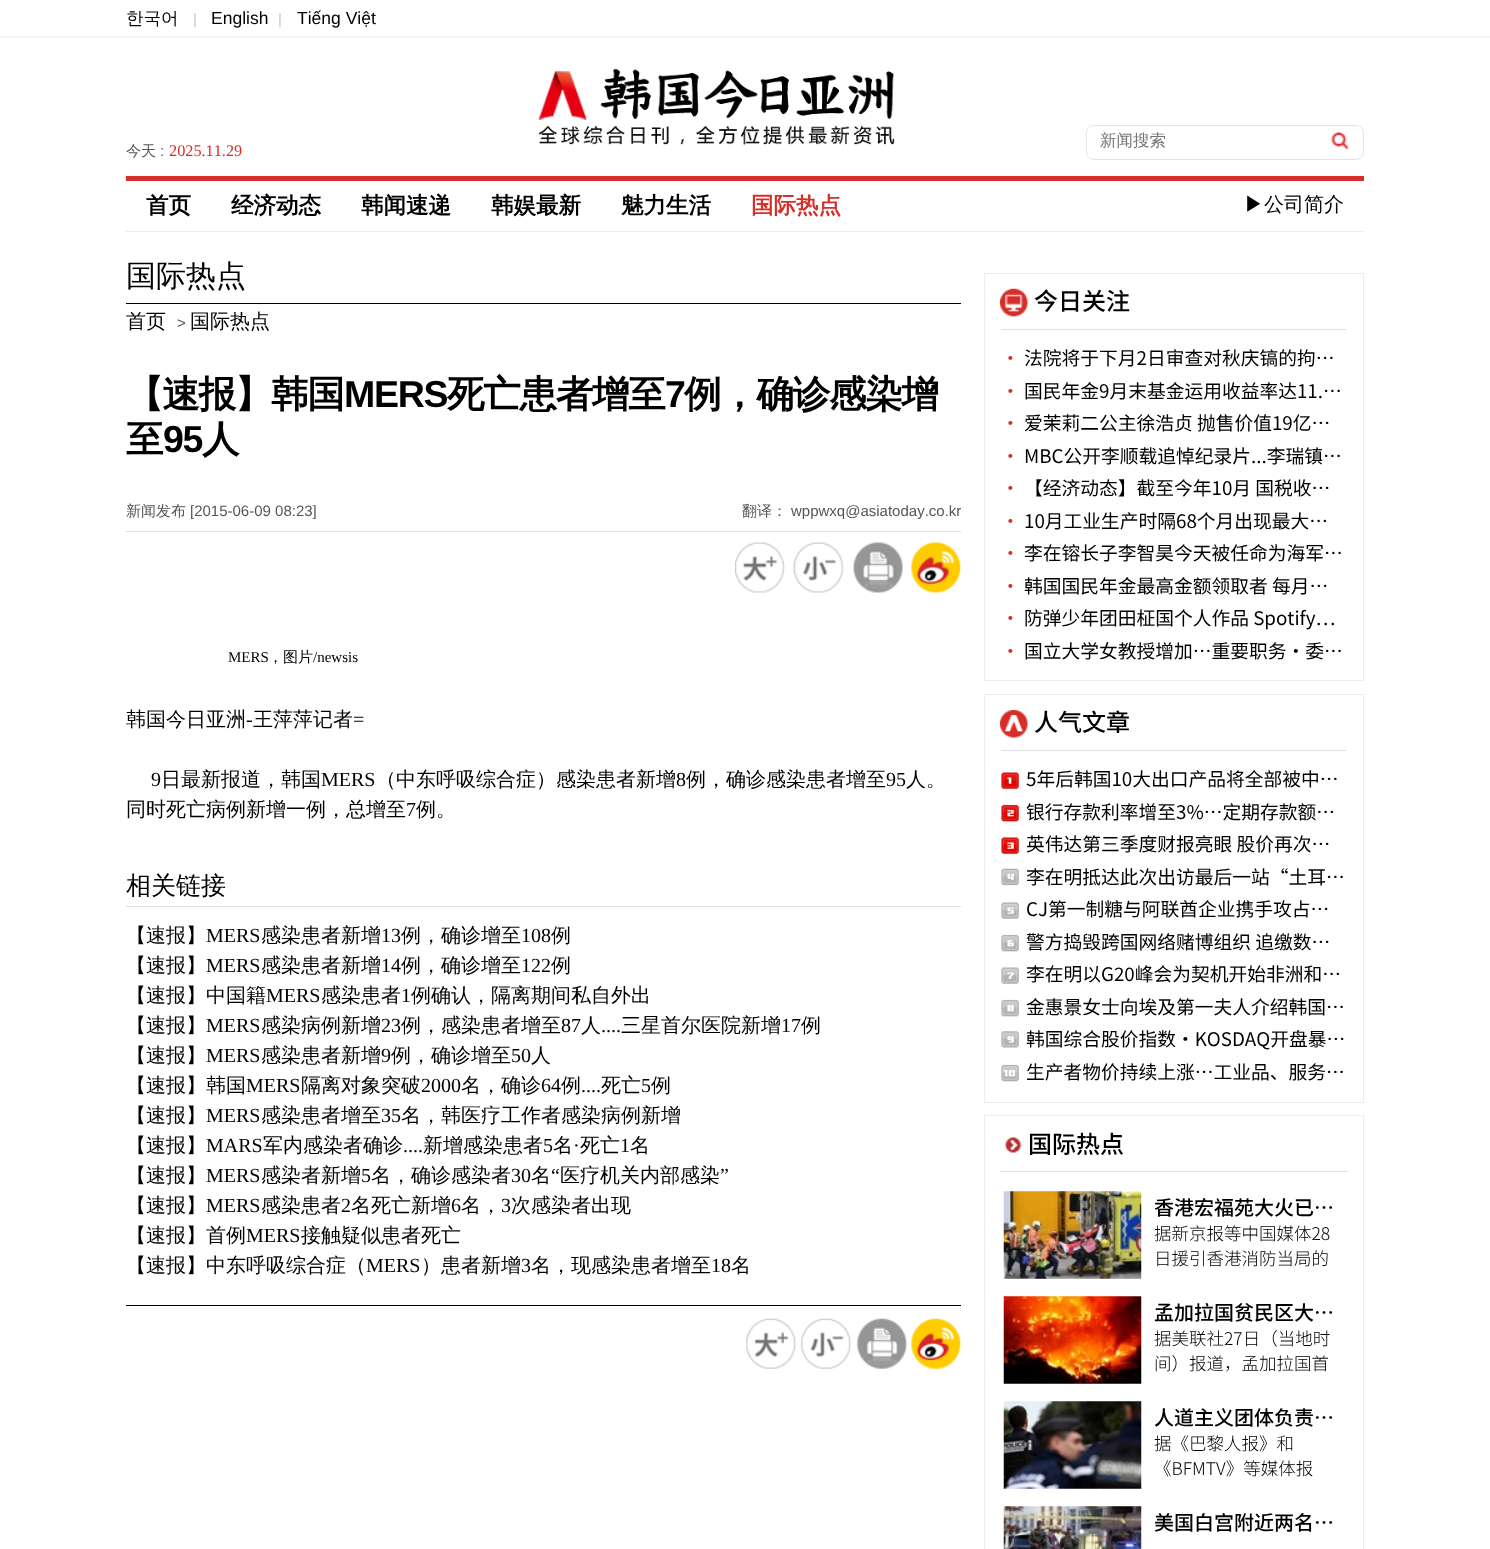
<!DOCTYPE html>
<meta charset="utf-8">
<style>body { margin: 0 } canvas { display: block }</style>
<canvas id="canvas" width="1490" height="1549"></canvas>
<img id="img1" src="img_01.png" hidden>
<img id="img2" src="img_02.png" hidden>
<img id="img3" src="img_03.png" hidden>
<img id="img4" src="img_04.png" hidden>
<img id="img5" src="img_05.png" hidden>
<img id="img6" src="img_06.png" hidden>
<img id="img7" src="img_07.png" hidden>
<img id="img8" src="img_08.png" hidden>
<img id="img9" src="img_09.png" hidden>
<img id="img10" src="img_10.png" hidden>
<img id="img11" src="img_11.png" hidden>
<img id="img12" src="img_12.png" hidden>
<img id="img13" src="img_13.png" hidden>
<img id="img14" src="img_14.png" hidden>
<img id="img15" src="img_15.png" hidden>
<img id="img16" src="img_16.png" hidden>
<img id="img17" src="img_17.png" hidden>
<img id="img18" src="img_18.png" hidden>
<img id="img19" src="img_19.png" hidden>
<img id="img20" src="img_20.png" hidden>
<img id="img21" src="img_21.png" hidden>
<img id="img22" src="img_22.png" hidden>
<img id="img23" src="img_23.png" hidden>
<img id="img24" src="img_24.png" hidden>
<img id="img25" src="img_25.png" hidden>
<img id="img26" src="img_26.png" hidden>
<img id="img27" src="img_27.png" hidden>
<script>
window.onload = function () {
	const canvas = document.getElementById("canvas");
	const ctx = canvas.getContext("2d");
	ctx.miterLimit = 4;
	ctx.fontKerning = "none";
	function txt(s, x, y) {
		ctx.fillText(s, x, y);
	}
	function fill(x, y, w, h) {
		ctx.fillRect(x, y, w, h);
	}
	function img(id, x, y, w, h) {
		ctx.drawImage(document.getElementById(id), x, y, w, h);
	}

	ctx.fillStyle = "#FFFFFF";
	fill(0, 0, 1490, 1549);
	ctx.fillStyle = "#F6F6F6";
	fill(0, 36, 1490, 2);
	img("img1", 538, 68, 357, 77);
	ctx.beginPath();
	ctx.roundRect(1086.5, 125.5, 277, 34, 7.5);
	ctx.strokeStyle = "#E5E5E5";
	ctx.stroke();
	img("img2", 1331, 132, 18, 17);
	ctx.fillStyle = "#D72E2A";
	fill(126, 176, 1238, 5);
	ctx.fillStyle = "#ECECEC";
	fill(126, 231, 1238, 1);
	ctx.fillStyle = "#000000";
	fill(126, 303, 835, 1);
	ctx.fillStyle = "#DEDEDE";
	fill(126, 531, 835, 1);
	img("img3", 735, 542, 50, 51);
	img("img4", 793, 542, 51, 51);
	img("img5", 852, 542, 51, 51);
	img("img6", 910, 542, 51, 51);
	ctx.fillStyle = "#DFDFDF";
	fill(126, 906, 835, 1);
	ctx.fillStyle = "#000000";
	fill(126, 1305, 835, 1);
	img("img7", 746, 1318, 50, 51);
	img("img8", 800, 1318, 52, 51);
	img("img9", 856, 1318, 51, 51);
	img("img10", 910, 1318, 51, 51);
	ctx.strokeStyle = "#ECECEC";
	ctx.strokeRect(984.5, 273.5, 379, 407);
	img("img11", 1000, 288, 28, 29);
	ctx.fillStyle = "#DFDFDF";
	fill(1001, 329, 345, 1);
	ctx.strokeRect(984.5, 694.5, 379, 408);
	img("img12", 1000, 710, 28, 28);
	fill(1001, 750, 345, 1);
	img("img13", 1001, 772, 18, 17);
	img("img14", 1001, 804, 18, 18);
	img("img15", 1001, 837, 18, 17);
	img("img16", 1001, 868, 18, 18);
	img("img17", 1001, 902, 18, 17);
	img("img18", 1001, 934, 18, 18);
	img("img19", 1001, 967, 18, 17);
	img("img20", 1001, 999, 18, 18);
	img("img21", 1001, 1031, 18, 17);
	img("img22", 1001, 1064, 18, 18);
	ctx.strokeRect(984.5, 1115.5, 379, 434);
	img("img23", 1004, 1137, 18, 16);
	fill(1000, 1171, 348, 1);
	img("img24", 1003, 1191, 139, 88);
	img("img25", 1003, 1296, 139, 88);
	img("img26", 1003, 1401, 139, 88);
	img("img27", 1003, 1506, 139, 43);
	ctx.font = "500 17.5px WenQuanYi Zen Hei";
	ctx.fillStyle = "#000000";
	txt("한국어", 126, 24);
	ctx.font = "15px Liberation Sans";
	ctx.fillStyle = "#C7C7C7";
	txt("|", 193, 24);
	ctx.font = "17.5px Liberation Sans";
	ctx.fillStyle = "#000000";
	txt("English", 211, 24);
	ctx.font = "15px Liberation Sans";
	ctx.fillStyle = "#C7C7C7";
	txt("|", 278, 24);
	ctx.font = "17.5px Liberation Sans";
	ctx.fillStyle = "#000000";
	txt("Tiếng Việt", 297, 24);
	ctx.font = "500 16.5px WenQuanYi Zen Hei";
	ctx.fillStyle = "#757575";
	txt("新闻搜索", 1100, 146);
	ctx.font = "500 15px WenQuanYi Zen Hei";
	ctx.fillStyle = "#555555";
	txt("今天", 126, 156);
	ctx.font = "15px Liberation Sans";
	txt(":", 160, 156);
	ctx.font = "16.25px Liberation Serif";
	ctx.fillStyle = "#D72E2A";
	txt("2025.11.29", 169, 156);
	ctx.font = "bold 22.5px WenQuanYi Zen Hei";
	ctx.fillStyle = "#000000";
	txt("首页", 146, 213);
	txt("经济动态", 231, 213);
	txt("韩闻速递", 361, 213);
	txt("韩娱最新", 491, 213);
	txt("魅力生活", 621, 213);
	ctx.fillStyle = "#D72E2A";
	txt("国际热点", 751, 213);
	ctx.font = "500 20px WenQuanYi Zen Hei";
	ctx.fillStyle = "#000000";
	txt("▶公司简介", 1244, 211);
	ctx.font = "500 30px WenQuanYi Zen Hei";
	txt("国际热点", 126, 286);
	ctx.font = "500 20px WenQuanYi Zen Hei";
	txt("首页", 126, 328);
	ctx.font = "15px Liberation Sans";
	ctx.fillStyle = "#555555";
	txt(">", 177, 328);
	ctx.font = "500 20px WenQuanYi Zen Hei";
	ctx.fillStyle = "#000000";
	txt("国际热点", 190, 328);
	ctx.letterSpacing = "-1.25px";
	ctx.font = "bold 37.5px WenQuanYi Zen Hei";
	txt("【速报】韩国", 126, 407);
	ctx.font = "bold 37.5px Liberation Sans";
	txt("MERS", 344, 407);
	ctx.font = "bold 37.5px WenQuanYi Zen Hei";
	txt("死亡患者增至", 447, 407);
	ctx.font = "bold 37.5px Liberation Sans";
	txt("7", 665, 407);
	ctx.font = "bold 37.5px WenQuanYi Zen Hei";
	txt("例，确诊感染增", 684, 407);
	txt("至", 126, 452);
	ctx.font = "bold 37.5px Liberation Sans";
	txt("95", 163, 452);
	ctx.font = "bold 37.5px WenQuanYi Zen Hei";
	txt("人", 202, 452);
	ctx.letterSpacing = "0px";
	ctx.font = "500 15px WenQuanYi Zen Hei";
	ctx.fillStyle = "#555555";
	txt("新闻发布", 126, 516);
	ctx.font = "15px Liberation Sans";
	txt("[2015-06-09 08:23]", 190, 516);
	ctx.font = "500 15px WenQuanYi Zen Hei";
	txt("翻译：", 742, 516);
	ctx.font = "15px Liberation Sans";
	txt("wppwxq@asiatoday.co.kr", 791, 516);
	ctx.font = "15px Liberation Serif";
	ctx.fillStyle = "#000000";
	txt("MERS", 228, 662);
	ctx.font = "500 15px WenQuanYi Zen Hei";
	txt("，图片", 268, 662);
	ctx.font = "15px Liberation Serif";
	txt("/newsis", 313, 662);
	ctx.font = "500 20px WenQuanYi Zen Hei";
	txt("韩国今日亚洲", 126, 726);
	ctx.font = "20px Liberation Serif";
	txt("-", 246, 726);
	ctx.font = "500 20px WenQuanYi Zen Hei";
	txt("王萍萍记者", 253, 726);
	ctx.font = "20px Liberation Serif";
	txt("=", 353, 726);
	txt("9", 151, 786);
	ctx.font = "500 20px WenQuanYi Zen Hei";
	txt("日最新报道，韩国", 161, 786);
	ctx.font = "20px Liberation Serif";
	txt("MERS", 321, 786);
	ctx.font = "500 20px WenQuanYi Zen Hei";
	txt("（中东呼吸综合症）感染患者新增", 376, 786);
	ctx.font = "20px Liberation Serif";
	txt("8", 676, 786);
	ctx.font = "500 20px WenQuanYi Zen Hei";
	txt("例，确诊感染患者增至", 686, 786);
	ctx.font = "20px Liberation Serif";
	txt("95", 886, 786);
	ctx.font = "500 20px WenQuanYi Zen Hei";
	txt("人。", 906, 786);
	txt("同时死亡病例新增一例，总增至", 126, 816);
	ctx.font = "20px Liberation Serif";
	txt("7", 406, 816);
	ctx.font = "500 20px WenQuanYi Zen Hei";
	txt("例。", 416, 816);
	ctx.font = "500 25px WenQuanYi Zen Hei";
	txt("相关链接", 126, 894);
	ctx.font = "500 20px WenQuanYi Zen Hei";
	txt("【速报】", 126, 942);
	ctx.font = "20px Liberation Serif";
	txt("MERS", 206, 942);
	ctx.font = "500 20px WenQuanYi Zen Hei";
	txt("感染患者新增", 261, 942);
	ctx.font = "20px Liberation Serif";
	txt("13", 381, 942);
	ctx.font = "500 20px WenQuanYi Zen Hei";
	txt("例，确诊增至", 401, 942);
	ctx.font = "20px Liberation Serif";
	txt("108", 521, 942);
	ctx.font = "500 20px WenQuanYi Zen Hei";
	txt("例", 551, 942);
	txt("【速报】", 126, 972);
	ctx.font = "20px Liberation Serif";
	txt("MERS", 206, 972);
	ctx.font = "500 20px WenQuanYi Zen Hei";
	txt("感染患者新增", 261, 972);
	ctx.font = "20px Liberation Serif";
	txt("14", 381, 972);
	ctx.font = "500 20px WenQuanYi Zen Hei";
	txt("例，确诊增至", 401, 972);
	ctx.font = "20px Liberation Serif";
	txt("122", 521, 972);
	ctx.font = "500 20px WenQuanYi Zen Hei";
	txt("例", 551, 972);
	txt("【速报】中国籍", 126, 1002);
	ctx.font = "20px Liberation Serif";
	txt("MERS", 266, 1002);
	ctx.font = "500 20px WenQuanYi Zen Hei";
	txt("感染患者", 321, 1002);
	ctx.font = "20px Liberation Serif";
	txt("1", 401, 1002);
	ctx.font = "500 20px WenQuanYi Zen Hei";
	txt("例确认，隔离期间私自外出", 411, 1002);
	txt("【速报】", 126, 1032);
	ctx.font = "20px Liberation Serif";
	txt("MERS", 206, 1032);
	ctx.font = "500 20px WenQuanYi Zen Hei";
	txt("感染病例新增", 261, 1032);
	ctx.font = "20px Liberation Serif";
	txt("23", 381, 1032);
	ctx.font = "500 20px WenQuanYi Zen Hei";
	txt("例，感染患者增至", 401, 1032);
	ctx.font = "20px Liberation Serif";
	txt("87", 561, 1032);
	ctx.font = "500 20px WenQuanYi Zen Hei";
	txt("人", 581, 1032);
	ctx.font = "20px Liberation Serif";
	txt("....", 601, 1032);
	ctx.font = "500 20px WenQuanYi Zen Hei";
	txt("三星首尔医院新增", 621, 1032);
	ctx.font = "20px Liberation Serif";
	txt("17", 781, 1032);
	ctx.font = "500 20px WenQuanYi Zen Hei";
	txt("例", 801, 1032);
	txt("【速报】", 126, 1062);
	ctx.font = "20px Liberation Serif";
	txt("MERS", 206, 1062);
	ctx.font = "500 20px WenQuanYi Zen Hei";
	txt("感染患者新增", 261, 1062);
	ctx.font = "20px Liberation Serif";
	txt("9", 381, 1062);
	ctx.font = "500 20px WenQuanYi Zen Hei";
	txt("例，确诊增至", 391, 1062);
	ctx.font = "20px Liberation Serif";
	txt("50", 511, 1062);
	ctx.font = "500 20px WenQuanYi Zen Hei";
	txt("人", 531, 1062);
	txt("【速报】韩国", 126, 1092);
	ctx.font = "20px Liberation Serif";
	txt("MERS", 246, 1092);
	ctx.font = "500 20px WenQuanYi Zen Hei";
	txt("隔离对象突破", 301, 1092);
	ctx.font = "20px Liberation Serif";
	txt("2000", 421, 1092);
	ctx.font = "500 20px WenQuanYi Zen Hei";
	txt("名，确诊", 461, 1092);
	ctx.font = "20px Liberation Serif";
	txt("64", 541, 1092);
	ctx.font = "500 20px WenQuanYi Zen Hei";
	txt("例", 561, 1092);
	ctx.font = "20px Liberation Serif";
	txt("....", 581, 1092);
	ctx.font = "500 20px WenQuanYi Zen Hei";
	txt("死亡", 601, 1092);
	ctx.font = "20px Liberation Serif";
	txt("5", 641, 1092);
	ctx.font = "500 20px WenQuanYi Zen Hei";
	txt("例", 651, 1092);
	txt("【速报】", 126, 1122);
	ctx.font = "20px Liberation Serif";
	txt("MERS", 206, 1122);
	ctx.font = "500 20px WenQuanYi Zen Hei";
	txt("感染患者增至", 261, 1122);
	ctx.font = "20px Liberation Serif";
	txt("35", 381, 1122);
	ctx.font = "500 20px WenQuanYi Zen Hei";
	txt("名，韩医疗工作者感染病例新增", 401, 1122);
	txt("【速报】", 126, 1152);
	ctx.font = "20px Liberation Serif";
	txt("MARS", 206, 1152);
	ctx.font = "500 20px WenQuanYi Zen Hei";
	txt("军内感染者确诊", 263, 1152);
	txt("新增感染患者", 423, 1152);
	ctx.font = "20px Liberation Serif";
	txt("5", 543, 1152);
	ctx.font = "500 20px WenQuanYi Zen Hei";
	txt("名", 553, 1152);
	ctx.font = "20px Liberation Serif";
	txt("·", 573, 1152);
	ctx.font = "500 20px WenQuanYi Zen Hei";
	txt("死亡", 580, 1152);
	ctx.font = "20px Liberation Serif";
	txt("1", 620, 1152);
	ctx.font = "500 20px WenQuanYi Zen Hei";
	txt("名", 630, 1152);
	ctx.font = "20px Liberation Serif";
	txt("....", 403, 1152);
	ctx.font = "500 20px WenQuanYi Zen Hei";
	txt("【速报】", 126, 1182);
	ctx.font = "20px Liberation Serif";
	txt("MERS", 206, 1182);
	ctx.font = "500 20px WenQuanYi Zen Hei";
	txt("感染者新增", 261, 1182);
	ctx.font = "20px Liberation Serif";
	txt("5", 361, 1182);
	ctx.font = "500 20px WenQuanYi Zen Hei";
	txt("名，确诊感染者", 371, 1182);
	ctx.font = "20px Liberation Serif";
	txt("30", 511, 1182);
	ctx.font = "500 20px WenQuanYi Zen Hei";
	txt("名", 531, 1182);
	ctx.font = "20px Liberation Serif";
	txt("“", 551, 1182);
	ctx.font = "500 20px WenQuanYi Zen Hei";
	txt("医疗机关内部感染", 560, 1182);
	ctx.font = "20px Liberation Serif";
	txt("”", 720, 1182);
	ctx.font = "500 20px WenQuanYi Zen Hei";
	txt("【速报】", 126, 1212);
	ctx.font = "20px Liberation Serif";
	txt("MERS", 206, 1212);
	ctx.font = "500 20px WenQuanYi Zen Hei";
	txt("感染患者", 261, 1212);
	ctx.font = "20px Liberation Serif";
	txt("2", 341, 1212);
	ctx.font = "500 20px WenQuanYi Zen Hei";
	txt("名死亡新增", 351, 1212);
	ctx.font = "20px Liberation Serif";
	txt("6", 451, 1212);
	ctx.font = "500 20px WenQuanYi Zen Hei";
	txt("名，", 461, 1212);
	ctx.font = "20px Liberation Serif";
	txt("3", 501, 1212);
	ctx.font = "500 20px WenQuanYi Zen Hei";
	txt("次感染者出现", 511, 1212);
	txt("【速报】首例", 126, 1242);
	ctx.font = "20px Liberation Serif";
	txt("MERS", 246, 1242);
	ctx.font = "500 20px WenQuanYi Zen Hei";
	txt("接触疑似患者死亡", 301, 1242);
	txt("【速报】中东呼吸综合症（", 126, 1272);
	ctx.font = "20px Liberation Serif";
	txt("MERS", 366, 1272);
	ctx.font = "500 20px WenQuanYi Zen Hei";
	txt("）患者新增", 421, 1272);
	ctx.font = "20px Liberation Serif";
	txt("3", 521, 1272);
	ctx.font = "500 20px WenQuanYi Zen Hei";
	txt("名，现感染患者增至", 531, 1272);
	ctx.font = "20px Liberation Serif";
	txt("18", 711, 1272);
	ctx.font = "500 20px WenQuanYi Zen Hei";
	txt("名", 731, 1272);
	ctx.font = "500 24px Noto Sans SC";
	txt("今日关注", 1034, 310);
	ctx.font = "18.75px Noto Sans SC";
	ctx.fillStyle = "#D72E2A";
	txt("•", 1001, 365);
	ctx.fillStyle = "#000000";
	txt("法院将于下月2日审查对秋庆镐的拘…", 1024, 365);
	ctx.fillStyle = "#D72E2A";
	txt("•", 1001, 398);
	ctx.fillStyle = "#000000";
	txt("国民年金9月末基金运用收益率达11.…", 1024, 398);
	ctx.fillStyle = "#D72E2A";
	txt("•", 1001, 430);
	ctx.fillStyle = "#000000";
	txt("爱茉莉二公主徐浩贞 抛售价值19亿…", 1024, 430);
	ctx.fillStyle = "#D72E2A";
	txt("•", 1001, 463);
	ctx.fillStyle = "#000000";
	txt("MBC公开李顺载追悼纪录片...李瑞镇…", 1024, 463);
	ctx.fillStyle = "#D72E2A";
	txt("•", 1001, 495);
	ctx.fillStyle = "#000000";
	txt("【经济动态】截至今年10月 国税收…", 1024, 495);
	ctx.fillStyle = "#D72E2A";
	txt("•", 1001, 528);
	ctx.fillStyle = "#000000";
	txt("10月工业生产时隔68个月出现最大…", 1024, 528);
	ctx.fillStyle = "#D72E2A";
	txt("•", 1001, 560);
	ctx.fillStyle = "#000000";
	txt("李在镕长子李智昊今天被任命为海军…", 1024, 560);
	ctx.fillStyle = "#D72E2A";
	txt("•", 1001, 593);
	ctx.fillStyle = "#000000";
	txt("韩国国民年金最高金额领取者 每月…", 1024, 593);
	ctx.fillStyle = "#D72E2A";
	txt("•", 1001, 625);
	ctx.fillStyle = "#000000";
	txt("防弹少年团田柾国个人作品 Spotify…", 1024, 625);
	ctx.fillStyle = "#D72E2A";
	txt("•", 1001, 658);
	ctx.fillStyle = "#000000";
	txt("国立大学女教授增加…重要职务·委…", 1024, 658);
	ctx.font = "500 24px Noto Sans SC";
	txt("人气文章", 1034, 731);
	ctx.font = "18.75px Noto Sans SC";
	txt("5年后韩国10大出口产品将全部被中…", 1026, 786);
	txt("银行存款利率增至3%…定期存款额…", 1026, 819);
	txt("英伟达第三季度财报亮眼 股价再次…", 1026, 851);
	txt("李在明抵达此次出访最后一站“土耳…", 1026, 884);
	txt("CJ第一制糖与阿联酋企业携手攻占…", 1026, 916);
	txt("警方捣毁跨国网络赌博组织 追缴数…", 1026, 949);
	txt("李在明以G20峰会为契机开始非洲和…", 1026, 981);
	txt("金惠景女士向埃及第一夫人介绍韩国…", 1026, 1014);
	txt("韩国综合股价指数·KOSDAQ开盘暴…", 1026, 1046);
	txt("生产者物价持续上涨…工业品、服务…", 1026, 1079);
	ctx.font = "500 24px Noto Sans SC";
	txt("国际热点", 1028, 1153);
	ctx.font = "500 20px Noto Sans SC";
	txt("香港宏福苑大火已…", 1154, 1215);
	ctx.font = "300 17.5px Noto Sans SC";
	txt("据新京报等中国媒体28", 1154, 1240);
	txt("日援引香港消防当局的", 1154, 1265);
	ctx.font = "500 20px Noto Sans SC";
	txt("孟加拉国贫民区大…", 1154, 1320);
	ctx.font = "300 17.5px Noto Sans SC";
	txt("据美联社27日（当地时", 1154, 1345);
	txt("间）报道，孟加拉国首", 1154, 1370);
	ctx.font = "500 20px Noto Sans SC";
	txt("人道主义团体负责…", 1154, 1425);
	ctx.font = "300 17.5px Noto Sans SC";
	txt("据《巴黎人报》和", 1154, 1450);
	txt("《BFMTV》等媒体报", 1154, 1475);
	ctx.font = "500 20px Noto Sans SC";
	txt("美国白宫附近两名…", 1154, 1530);
};
</script>
